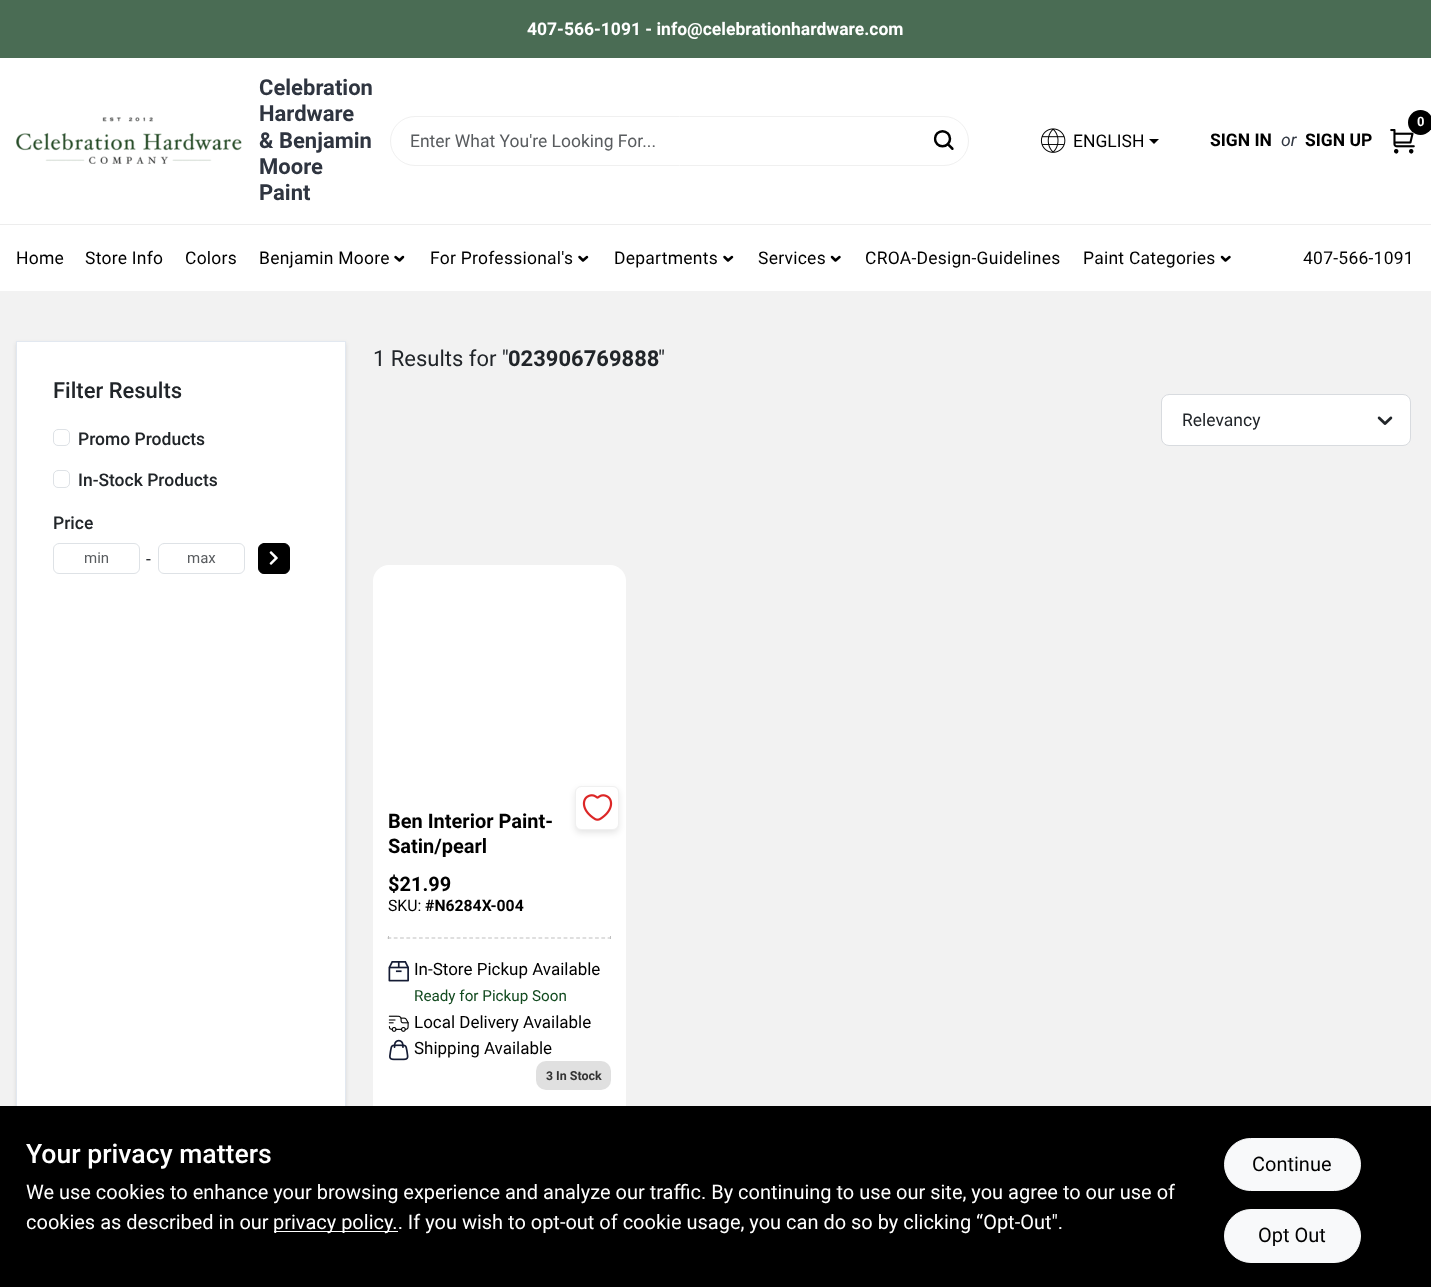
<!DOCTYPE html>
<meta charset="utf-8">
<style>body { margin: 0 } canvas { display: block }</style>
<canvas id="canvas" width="1431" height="1287"></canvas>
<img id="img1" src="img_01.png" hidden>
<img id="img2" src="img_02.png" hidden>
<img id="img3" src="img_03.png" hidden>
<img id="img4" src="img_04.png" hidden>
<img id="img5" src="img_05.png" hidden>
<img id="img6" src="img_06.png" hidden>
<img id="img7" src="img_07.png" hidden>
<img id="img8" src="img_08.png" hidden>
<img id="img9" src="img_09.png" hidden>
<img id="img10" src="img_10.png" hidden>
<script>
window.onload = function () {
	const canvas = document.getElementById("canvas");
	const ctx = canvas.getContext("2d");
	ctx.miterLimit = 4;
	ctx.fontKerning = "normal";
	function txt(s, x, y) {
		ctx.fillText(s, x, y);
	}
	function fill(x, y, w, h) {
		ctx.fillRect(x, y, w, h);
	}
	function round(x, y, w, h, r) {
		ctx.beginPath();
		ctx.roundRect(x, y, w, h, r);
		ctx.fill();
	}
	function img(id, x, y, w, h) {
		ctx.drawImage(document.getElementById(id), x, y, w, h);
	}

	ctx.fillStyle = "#F2F2F2";
	fill(0, 0, 1431, 1287);
	ctx.fillStyle = "#4A6C54";
	fill(0, 0, 1431, 58);
	ctx.fillStyle = "#FFFFFF";
	fill(0, 58, 1431, 166);
	img("img1", 16, 117, 226, 47);
	ctx.beginPath();
	ctx.roundRect(390.5, 116.5, 578, 49, 24.5);
	ctx.strokeStyle = "#F0F0F0";
	ctx.stroke();
	img("img2", 933, 130, 21, 20);
	img("img3", 1390, 129, 25, 25);
	ctx.fillStyle = "#000000";
	ctx.beginPath();
	ctx.arc(1420.5, 122.5, 12.5, 0, Math.PI * 2);
	ctx.fill();
	img("img4", 1040, 128, 26, 25);
	ctx.beginPath();
	ctx.moveTo(1149, 139);
	ctx.lineTo(1159, 139);
	ctx.lineTo(1154, 144);
	ctx.closePath();
	ctx.fill();
	ctx.fillStyle = "#FFFFFF";
	fill(0, 225, 1431, 66);
	ctx.fillStyle = "#EDEDED";
	fill(0, 224, 1431, 1);
	ctx.beginPath();
	ctx.moveTo(403, 257);
	ctx.lineTo(399.5, 260.5);
	ctx.lineTo(395.5, 257);
	ctx.strokeStyle = "#000000";
	ctx.lineWidth = 2.5;
	ctx.lineCap = "round";
	ctx.lineJoin = "round";
	ctx.stroke();
	ctx.beginPath();
	ctx.moveTo(587, 257);
	ctx.lineTo(583, 260.5);
	ctx.lineTo(579.5, 257);
	ctx.stroke();
	ctx.beginPath();
	ctx.moveTo(732, 257);
	ctx.lineTo(728, 260.5);
	ctx.lineTo(724.5, 257);
	ctx.stroke();
	ctx.beginPath();
	ctx.moveTo(839.5, 257);
	ctx.lineTo(835.5, 260.5);
	ctx.lineTo(832, 257);
	ctx.stroke();
	ctx.beginPath();
	ctx.moveTo(1229.5, 257);
	ctx.lineTo(1225.5, 260.5);
	ctx.lineTo(1222, 257);
	ctx.stroke();
	ctx.fillStyle = "rgba(0, 0, 0, 0.1)";
	ctx.filter = "blur(2px)";
	ctx.beginPath();
	ctx.rect(16, 343, 330, 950);
	ctx.fill();
	ctx.filter = "none";
	ctx.fillStyle = "#FFFFFF";
	fill(17, 342, 328, 764);
	ctx.strokeStyle = "#E2E8F0";
	ctx.lineWidth = 1;
	ctx.lineJoin = "miter";
	ctx.strokeRect(16.5, 341.5, 329, 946);
	ctx.beginPath();
	ctx.roundRect(53.5, 429.5, 16, 16, 4.5);
	ctx.strokeStyle = "#DEE2E6";
	ctx.stroke();
	ctx.beginPath();
	ctx.roundRect(53.5, 470.5, 16, 17, 4.5);
	ctx.stroke();
	ctx.beginPath();
	ctx.roundRect(53.5, 543.5, 86, 30, 5.5);
	ctx.stroke();
	ctx.beginPath();
	ctx.roundRect(158.5, 543.5, 86, 30, 5.5);
	ctx.stroke();
	ctx.fillStyle = "#000000";
	ctx.beginPath();
	ctx.roundRect(258.5, 543.5, 31, 30, 5.5);
	ctx.fill();
	ctx.strokeStyle = "#000000";
	ctx.stroke();
	img("img5", 269, 551, 9, 14);
	ctx.fillStyle = "#FFFFFF";
	ctx.beginPath();
	ctx.roundRect(1161.5, 394.5, 249, 51, 7.5);
	ctx.fill();
	ctx.strokeStyle = "#D8DBDF";
	ctx.stroke();
	img("img6", 1377, 416, 16, 9);
	round(373, 565, 253, 606, 16);
	ctx.fillStyle = "rgba(0, 0, 0, 0.1)";
	ctx.filter = "blur(3px)";
	ctx.beginPath();
	ctx.roundRect(575, 789, 44, 44, 6);
	ctx.fill();
	ctx.filter = "none";
	ctx.fillStyle = "#FFFFFF";
	ctx.beginPath();
	ctx.roundRect(575.5, 786.5, 43, 43, 5.5);
	ctx.fill();
	ctx.strokeStyle = "#F0F0F0";
	ctx.stroke();
	img("img7", 582, 794, 31, 27);
	ctx.fillStyle = "#BFBFBF";
	fill(610, 936, 1, 3);
	ctx.beginPath();
	ctx.moveTo(387.5, 938);
	ctx.lineTo(611, 938);
	ctx.strokeStyle = "#BFBFBF";
	ctx.lineWidth = 1.2;
	ctx.lineCap = "butt";
	ctx.setLineDash([3.75, 2.54]);
	ctx.stroke();
	fill(388, 936, 1, 3);
	img("img8", 388, 961, 21, 21);
	img("img9", 388, 1015, 21, 17);
	img("img10", 389, 1039, 20, 22);
	ctx.fillStyle = "#E0E0E0";
	round(536, 1061, 75, 29, 10);
	ctx.fillStyle = "#000000";
	fill(0, 1106, 1431, 181);
	ctx.fillStyle = "#FFFFFF";
	fill(274, 1231, 124, 1);
	ctx.fillStyle = "#F8F9FA";
	ctx.beginPath();
	ctx.roundRect(1224.5, 1138.5, 136, 52, 26);
	ctx.fill();
	ctx.strokeStyle = "#F8F9FA";
	ctx.lineWidth = 1;
	ctx.setLineDash([]);
	ctx.stroke();
	ctx.beginPath();
	ctx.roundRect(1224.5, 1209.5, 136, 53, 26.5);
	ctx.fill();
	ctx.stroke();
	ctx.font = "bold 17.5px Roboto";
	ctx.fillStyle = "#FFFFFF";
	txt("407-566-1091 - info@celebrationhardware.com", 527, 35);
	ctx.font = "bold 22px Roboto";
	ctx.fillStyle = "#2F3540";
	txt("Celebration", 259, 95);
	txt("Hardware", 259, 121);
	txt("& Benjamin", 259, 148);
	txt("Moore", 259, 174);
	txt("Paint", 259, 200);
	ctx.font = "17.5px Roboto";
	ctx.fillStyle = "#595C5F";
	txt("Enter What You're Looking For...", 410, 147);
	ctx.letterSpacing = "-1px";
	ctx.font = "bold 13px Roboto";
	ctx.fillStyle = "#FFFFFF";
	txt("0", 1417, 126);
	ctx.letterSpacing = "0px";
	ctx.font = "17.5px Roboto";
	ctx.fillStyle = "#000000";
	txt("ENGLISH", 1073, 147);
	ctx.font = "bold 17.5px Roboto";
	txt("SIGN IN", 1210, 146);
	ctx.font = "italic 17.5px Roboto";
	ctx.fillStyle = "#2F3540";
	txt("or", 1281, 146);
	ctx.font = "bold 17.5px Roboto";
	ctx.fillStyle = "#000000";
	txt("SIGN UP", 1305, 146);
	ctx.letterSpacing = "0.25px";
	ctx.font = "17.5px Roboto";
	txt("Home", 16, 264);
	txt("Store Info", 85, 264);
	txt("Colors", 185, 264);
	txt("Benjamin Moore", 259, 264);
	txt("For Professional's", 430, 264);
	txt("Departments", 614, 264);
	txt("Services", 758, 264);
	txt("CROA-Design-Guidelines", 865, 264);
	txt("Paint Categories", 1083, 264);
	txt("407-566-1091", 1303, 264);
	ctx.letterSpacing = "0px";
	ctx.font = "500 22px Roboto";
	ctx.fillStyle = "#212529";
	txt("Filter Results", 53, 398);
	ctx.font = "500 17.5px Roboto";
	txt("Promo Products", 78, 445);
	txt("In-Stock Products", 78, 486);
	txt("Price", 53, 529);
	ctx.font = "15px Roboto";
	ctx.fillStyle = "#595C5F";
	txt("min", 84, 563);
	ctx.font = "17.5px Roboto";
	ctx.fillStyle = "#212529";
	txt("-", 146, 565);
	ctx.font = "15px Roboto";
	ctx.fillStyle = "#595C5F";
	txt("max", 187, 563);
	ctx.font = "22px Roboto";
	ctx.fillStyle = "#212529";
	txt("1 Results for \"", 373, 366);
	ctx.font = "bold 22px Roboto";
	txt("023906769888", 508, 366);
	ctx.font = "22px Roboto";
	txt("\"", 658, 366);
	ctx.font = "17.5px Roboto";
	txt("Relevancy", 1182, 426);
	ctx.font = "bold 20px Roboto";
	ctx.fillStyle = "#000000";
	txt("Ben Interior Paint-", 388, 828);
	txt("Satin/pearl", 388, 853);
	txt("$21.99", 388, 891);
	ctx.font = "15.75px Roboto";
	txt("SKU:", 388, 911);
	ctx.font = "bold 15.75px Roboto";
	txt("#N6284X-004", 425, 911);
	ctx.font = "17px Roboto";
	txt("In-Store Pickup Available", 414, 975);
	ctx.font = "15.25px Roboto";
	ctx.fillStyle = "#124A1F";
	txt("Ready for Pickup Soon", 414, 1001);
	ctx.font = "17px Roboto";
	ctx.fillStyle = "#000000";
	txt("Local Delivery Available", 414, 1028);
	txt("Shipping Available", 414, 1054);
	ctx.font = "bold 12.5px Liberation Sans";
	ctx.fillStyle = "#333333";
	txt("3", 546, 1080);
	ctx.font = "bold 12.5px Roboto";
	txt("In Stock", 556, 1080);
	ctx.font = "500 26.6px Roboto";
	ctx.fillStyle = "#FFFFFF";
	txt("Your privacy matters", 26, 1163);
	ctx.font = "20px Roboto";
	txt("We use cookies to enhance your browsing experience and analyze our traffic. By continuing to use our site, you agree to our use of", 26, 1199);
	txt("cookies as described in our", 26, 1229);
	txt("privacy policy.. If you wish to opt-out of cookie usage, you can do so by clicking “Opt-Out\".", 273, 1229);
	ctx.fillStyle = "#000000";
	txt("Continue", 1252, 1171);
	txt("Opt Out", 1258, 1242);
};
</script>
